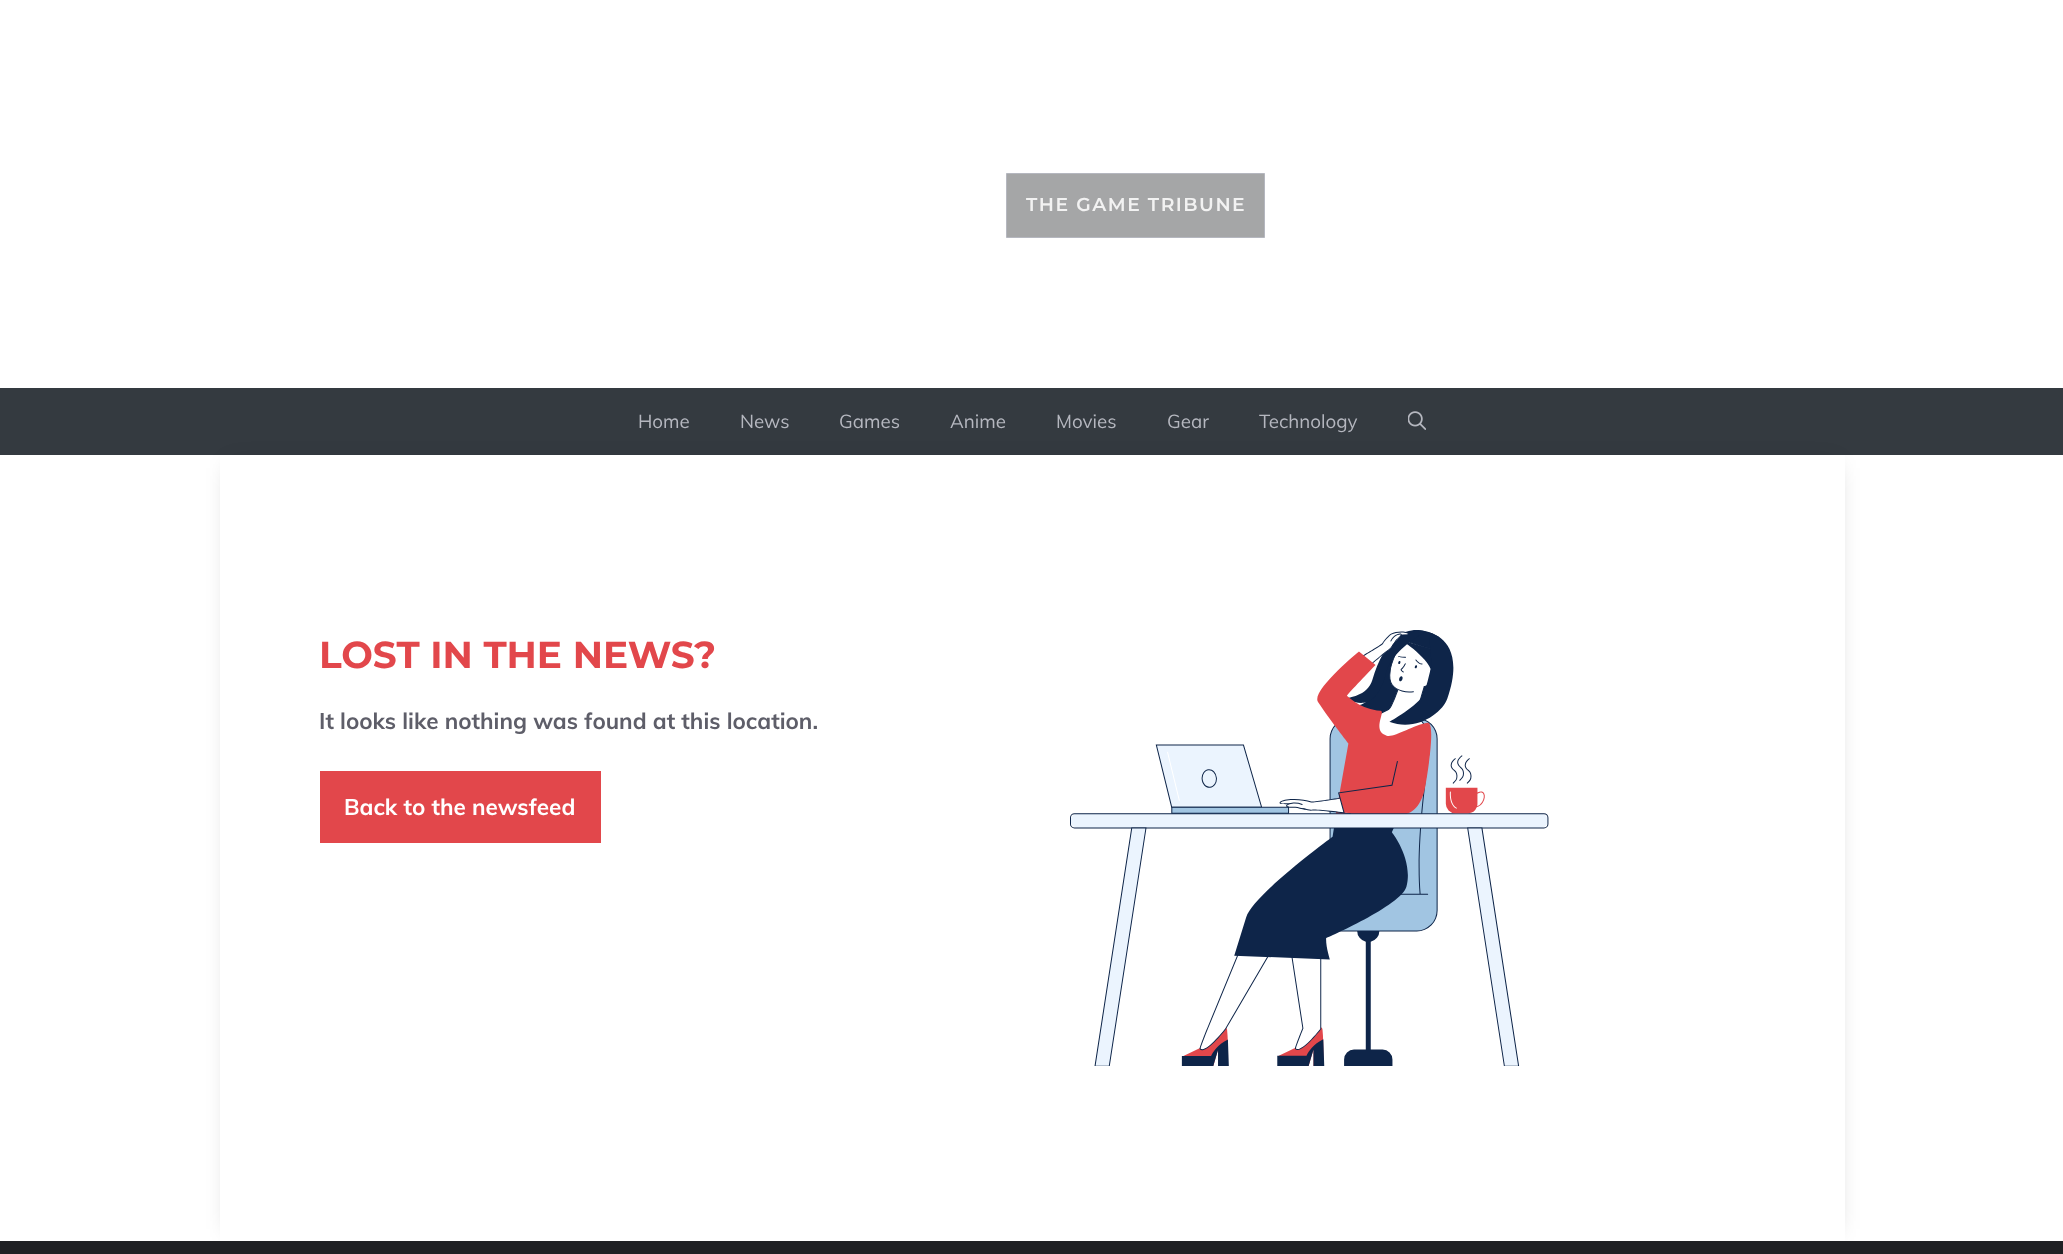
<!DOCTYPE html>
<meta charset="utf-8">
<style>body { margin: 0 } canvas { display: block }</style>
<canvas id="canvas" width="2063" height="1254"></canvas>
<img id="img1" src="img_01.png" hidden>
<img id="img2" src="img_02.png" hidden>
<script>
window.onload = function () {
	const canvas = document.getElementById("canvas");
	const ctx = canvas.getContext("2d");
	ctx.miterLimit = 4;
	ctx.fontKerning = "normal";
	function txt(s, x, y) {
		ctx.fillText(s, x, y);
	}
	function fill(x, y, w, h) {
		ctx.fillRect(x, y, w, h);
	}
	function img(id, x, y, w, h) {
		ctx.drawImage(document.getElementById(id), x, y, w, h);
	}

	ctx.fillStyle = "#FFFFFF";
	fill(0, 0, 2063, 1254);
	ctx.fillStyle = "#A5A6A7";
	ctx.beginPath();
	ctx.rect(1006.5, 173.5, 258, 64);
	ctx.fill();
	ctx.strokeStyle = "#B5B7BF";
	ctx.stroke();
	ctx.fillStyle = "#343A40";
	fill(0, 388, 2063, 67);
	ctx.save();
	ctx.beginPath();
	ctx.moveTo(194, 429);
	ctx.lineTo(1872, 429);
	ctx.lineTo(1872, 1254);
	ctx.lineTo(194, 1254);
	ctx.closePath();
	ctx.moveTo(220, 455);
	ctx.lineTo(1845, 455);
	ctx.lineTo(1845, 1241);
	ctx.lineTo(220, 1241);
	ctx.closePath();
	ctx.clip("evenodd");
	ctx.fillStyle = "rgba(0, 0, 0, 0.3)";
	ctx.filter = "blur(12.5px)";
	ctx.beginPath();
	ctx.rect(233, 468, 1600, 761);
	ctx.fill();
	ctx.filter = "none";
	ctx.restore();
	img("img1", 1408, 411, 18, 19);
	ctx.fillStyle = "#E2474B";
	fill(320, 771, 281, 72);
	img("img2", 1070, 630, 479, 436);
	ctx.fillStyle = "#1F2024";
	fill(0, 1241, 2063, 13);
	ctx.letterSpacing = "1.5px";
	ctx.font = "600 18.75px Montserrat";
	ctx.fillStyle = "#F2F2F2";
	txt("THE GAME TRIBUNE", 1026, 211);
	ctx.letterSpacing = "0px";
	ctx.font = "18.75px Muli";
	ctx.fillStyle = "#B5B7BF";
	txt("Home", 638, 428);
	txt("News", 740, 428);
	txt("Games", 839, 428);
	txt("Anime", 950, 428);
	txt("Movies", 1056, 428);
	txt("Gear", 1167, 428);
	txt("Technology", 1259, 428);
	ctx.font = "bold 37.5px Montserrat";
	ctx.fillStyle = "#E2474B";
	txt("LOST IN THE NEWS?", 319, 668);
	ctx.font = "bold 22.5px Muli";
	ctx.fillStyle = "#5E5E69";
	txt("It looks like nothing was found at this location.", 319, 729);
	ctx.fillStyle = "#FFFFFF";
	txt("Back to the newsfeed", 344, 815);
};
</script>
